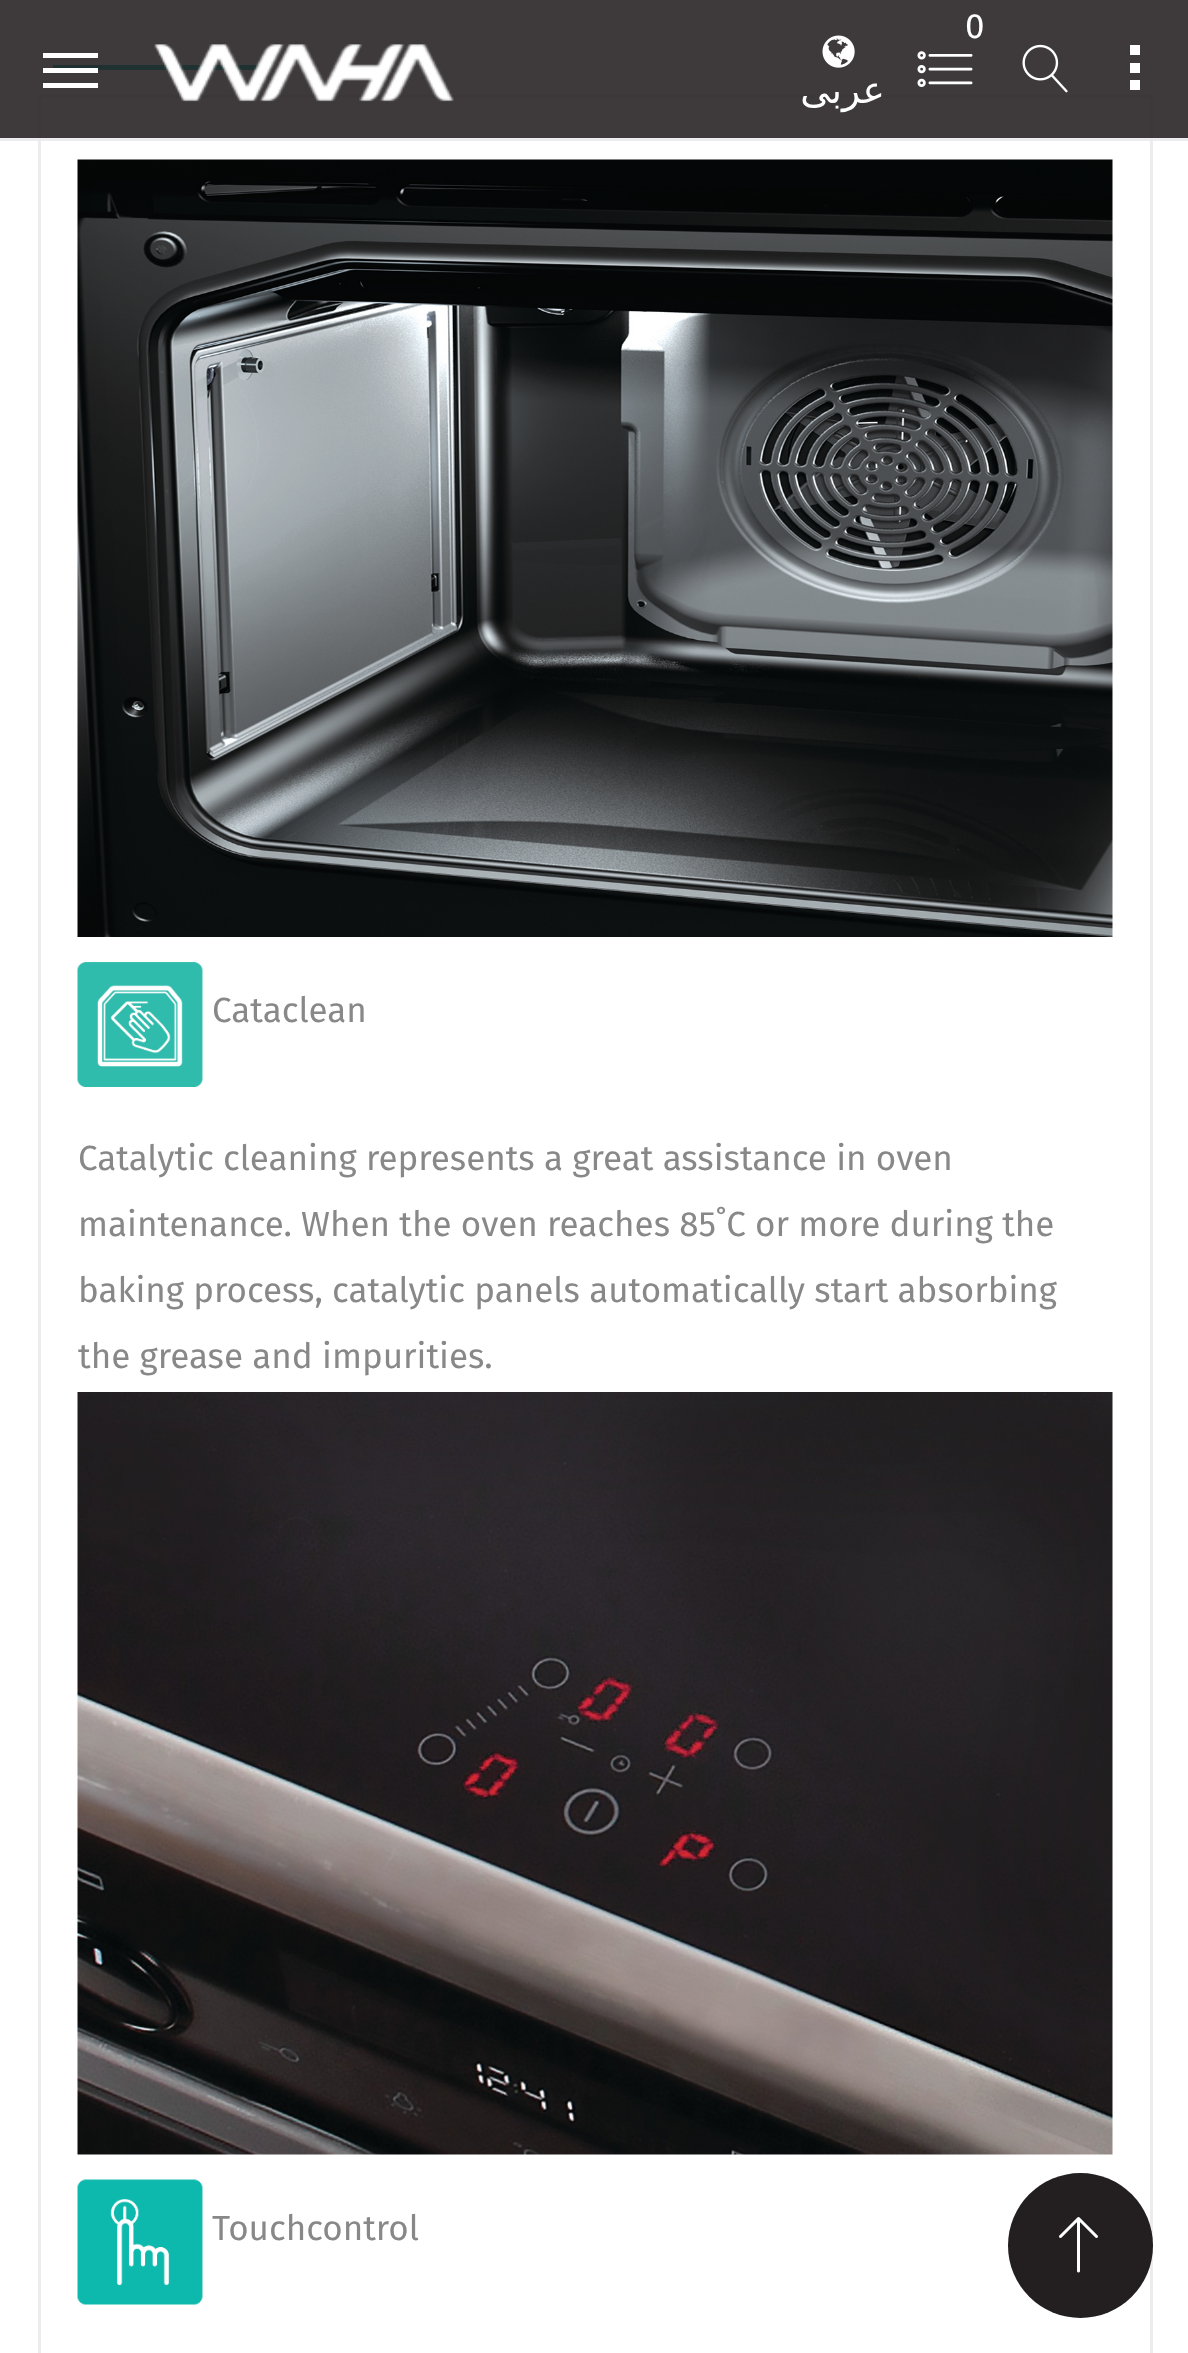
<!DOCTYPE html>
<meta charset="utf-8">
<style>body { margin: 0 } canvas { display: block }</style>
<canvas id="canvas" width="1188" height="2353"></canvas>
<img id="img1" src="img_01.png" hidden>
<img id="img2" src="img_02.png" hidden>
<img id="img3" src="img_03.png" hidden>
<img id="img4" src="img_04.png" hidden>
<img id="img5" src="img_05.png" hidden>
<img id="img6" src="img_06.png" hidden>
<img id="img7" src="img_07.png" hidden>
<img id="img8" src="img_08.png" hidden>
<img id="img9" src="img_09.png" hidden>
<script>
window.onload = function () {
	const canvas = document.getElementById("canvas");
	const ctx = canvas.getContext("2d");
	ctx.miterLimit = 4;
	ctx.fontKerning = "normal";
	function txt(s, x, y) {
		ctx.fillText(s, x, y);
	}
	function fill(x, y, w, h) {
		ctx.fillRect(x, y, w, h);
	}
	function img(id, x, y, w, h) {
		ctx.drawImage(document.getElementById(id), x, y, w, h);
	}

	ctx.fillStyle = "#FFFFFF";
	fill(0, 0, 1188, 2353);
	ctx.fillStyle = "#00B9AD";
	fill(53, 65, 217, 5);
	ctx.strokeStyle = "#ECECEE";
	ctx.lineWidth = 3;
	ctx.strokeRect(39.5, 96.5, 1112, 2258);
	ctx.fillStyle = "rgba(35, 31, 32, 0.88)";
	fill(0, 0, 1188, 138);
	ctx.fillStyle = "#ECECEE";
	fill(0, 138, 1188, 3);
	ctx.fillStyle = "#FFFFFF";
	fill(43, 68, 55, 5);
	fill(43, 53, 55, 5);
	fill(43, 83, 55, 5);
	img("img1", 154, 44, 300, 58);
	img("img2", 917, 51, 56, 36);
	img("img3", 1022, 44, 46, 49);
	img("img4", 822, 35, 33, 33);
	fill(1130, 63, 10, 10);
	fill(1130, 45, 10, 10);
	fill(1130, 80, 10, 10);
	img("img5", 77, 159, 1036, 778);
	img("img6", 77, 962, 126, 125);
	img("img7", 77, 1392, 1036, 763);
	img("img8", 77, 2179, 126, 126);
	ctx.fillStyle = "#231F20";
	ctx.beginPath();
	ctx.arc(1080.5, 2245.5, 72.5, 0, Math.PI * 2);
	ctx.fill();
	img("img9", 1059, 2217, 39, 56);
	ctx.font = "35px Fira Sans";
	ctx.fillStyle = "#FFFFFF";
	txt("0", 965, 38);
	ctx.direction = "rtl";
	ctx.font = "37.5px DejaVu Sans";
	txt("عربى", 885, 103);
	ctx.direction = "ltr";
	ctx.font = "35px Fira Sans";
	ctx.fillStyle = "#888888";
	txt("Cataclean", 212, 1022);
	txt("Catalytic cleaning represents a great assistance in oven", 78, 1170);
	txt("maintenance. When the oven reaches 85˚C or more during the", 78, 1236);
	txt("baking process, catalytic panels automatically start absorbing", 78, 1302);
	txt("the grease and impurities.", 78, 1368);
	txt("Touchcontrol", 212, 2240);
};
</script>
